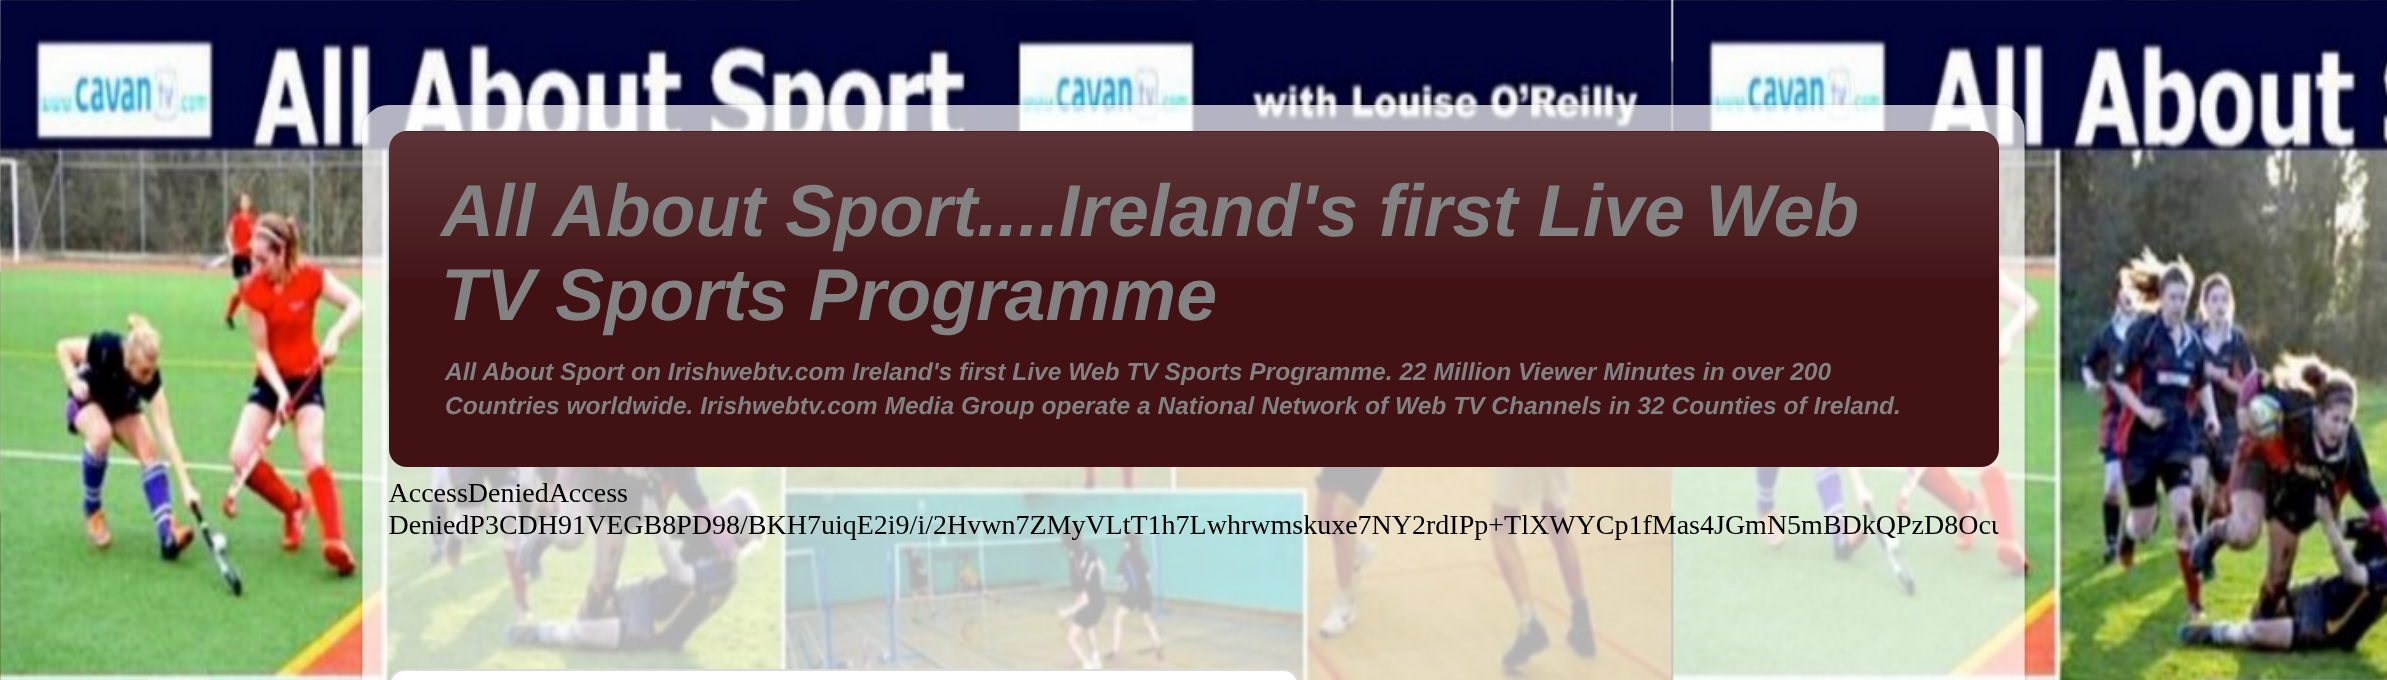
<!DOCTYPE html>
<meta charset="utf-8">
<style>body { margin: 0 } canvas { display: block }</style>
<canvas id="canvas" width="2387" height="680"></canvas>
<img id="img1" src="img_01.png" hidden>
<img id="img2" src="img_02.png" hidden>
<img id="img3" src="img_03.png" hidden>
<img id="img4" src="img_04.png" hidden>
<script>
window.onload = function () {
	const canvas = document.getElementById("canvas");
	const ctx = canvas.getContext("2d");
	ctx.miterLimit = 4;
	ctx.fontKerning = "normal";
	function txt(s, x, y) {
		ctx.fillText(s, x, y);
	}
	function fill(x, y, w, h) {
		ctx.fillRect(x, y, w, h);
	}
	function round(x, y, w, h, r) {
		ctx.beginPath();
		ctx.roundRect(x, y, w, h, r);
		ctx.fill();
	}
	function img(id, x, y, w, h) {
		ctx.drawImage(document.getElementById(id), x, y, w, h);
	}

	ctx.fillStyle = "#FFFFFF";
	fill(0, 0, 2387, 680);
	img("img1", 0, 0, 2387, 680);
	ctx.save();
	ctx.beginPath();
	ctx.moveTo(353, 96);
	ctx.lineTo(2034, 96);
	ctx.lineTo(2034, 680);
	ctx.lineTo(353, 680);
	ctx.closePath();
	ctx.moveTo(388, 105);
	ctx.lineTo(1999, 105);
	ctx.bezierCurveTo(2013.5, 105, 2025, 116.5, 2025, 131);
	ctx.lineTo(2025, 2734);
	ctx.bezierCurveTo(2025, 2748.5, 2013.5, 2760, 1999, 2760);
	ctx.lineTo(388, 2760);
	ctx.bezierCurveTo(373.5, 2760, 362, 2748.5, 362, 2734);
	ctx.lineTo(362, 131);
	ctx.bezierCurveTo(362, 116.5, 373.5, 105, 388, 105);
	ctx.closePath();
	ctx.clip("evenodd");
	ctx.fillStyle = "rgba(0, 0, 0, 0.15)";
	ctx.filter = "blur(2.5px)";
	ctx.beginPath();
	ctx.roundRect(362, 105, 1663, 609, 26);
	ctx.fill();
	ctx.filter = "none";
	ctx.restore();
	img("img2", 362, 105, 1663, 575);
	ctx.fillStyle = "#411114";
	round(389, 131, 1610, 336, 18);
	img("img3", 389, 131, 1610, 147);
	img("img4", 388, 483, 1611, 57);
	ctx.fillStyle = "#FFFFFF";
	ctx.beginPath();
	ctx.roundRect(390, 670, 908, 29, 17);
	ctx.fill();
	ctx.strokeStyle = "#DBDBDB";
	ctx.lineWidth = 2;
	ctx.stroke();
	ctx.font = "italic bold 73.5px Liberation Sans";
	ctx.fillStyle = "#828282";
	txt("All About Sport....Ireland's first Live Web", 441, 236);
	txt("TV Sports Programme", 441, 320);
	ctx.font = "italic bold 24.57px Liberation Sans";
	txt("All About Sport on Irishwebtv.com Ireland's first Live Web TV Sports Programme. 22 Million Viewer Minutes in over 200", 445, 380);
	txt("Countries worldwide. Irishwebtv.com Media Group operate a National Network of Web TV Channels in 32 Counties of Ireland.", 445, 414);
};
</script>
